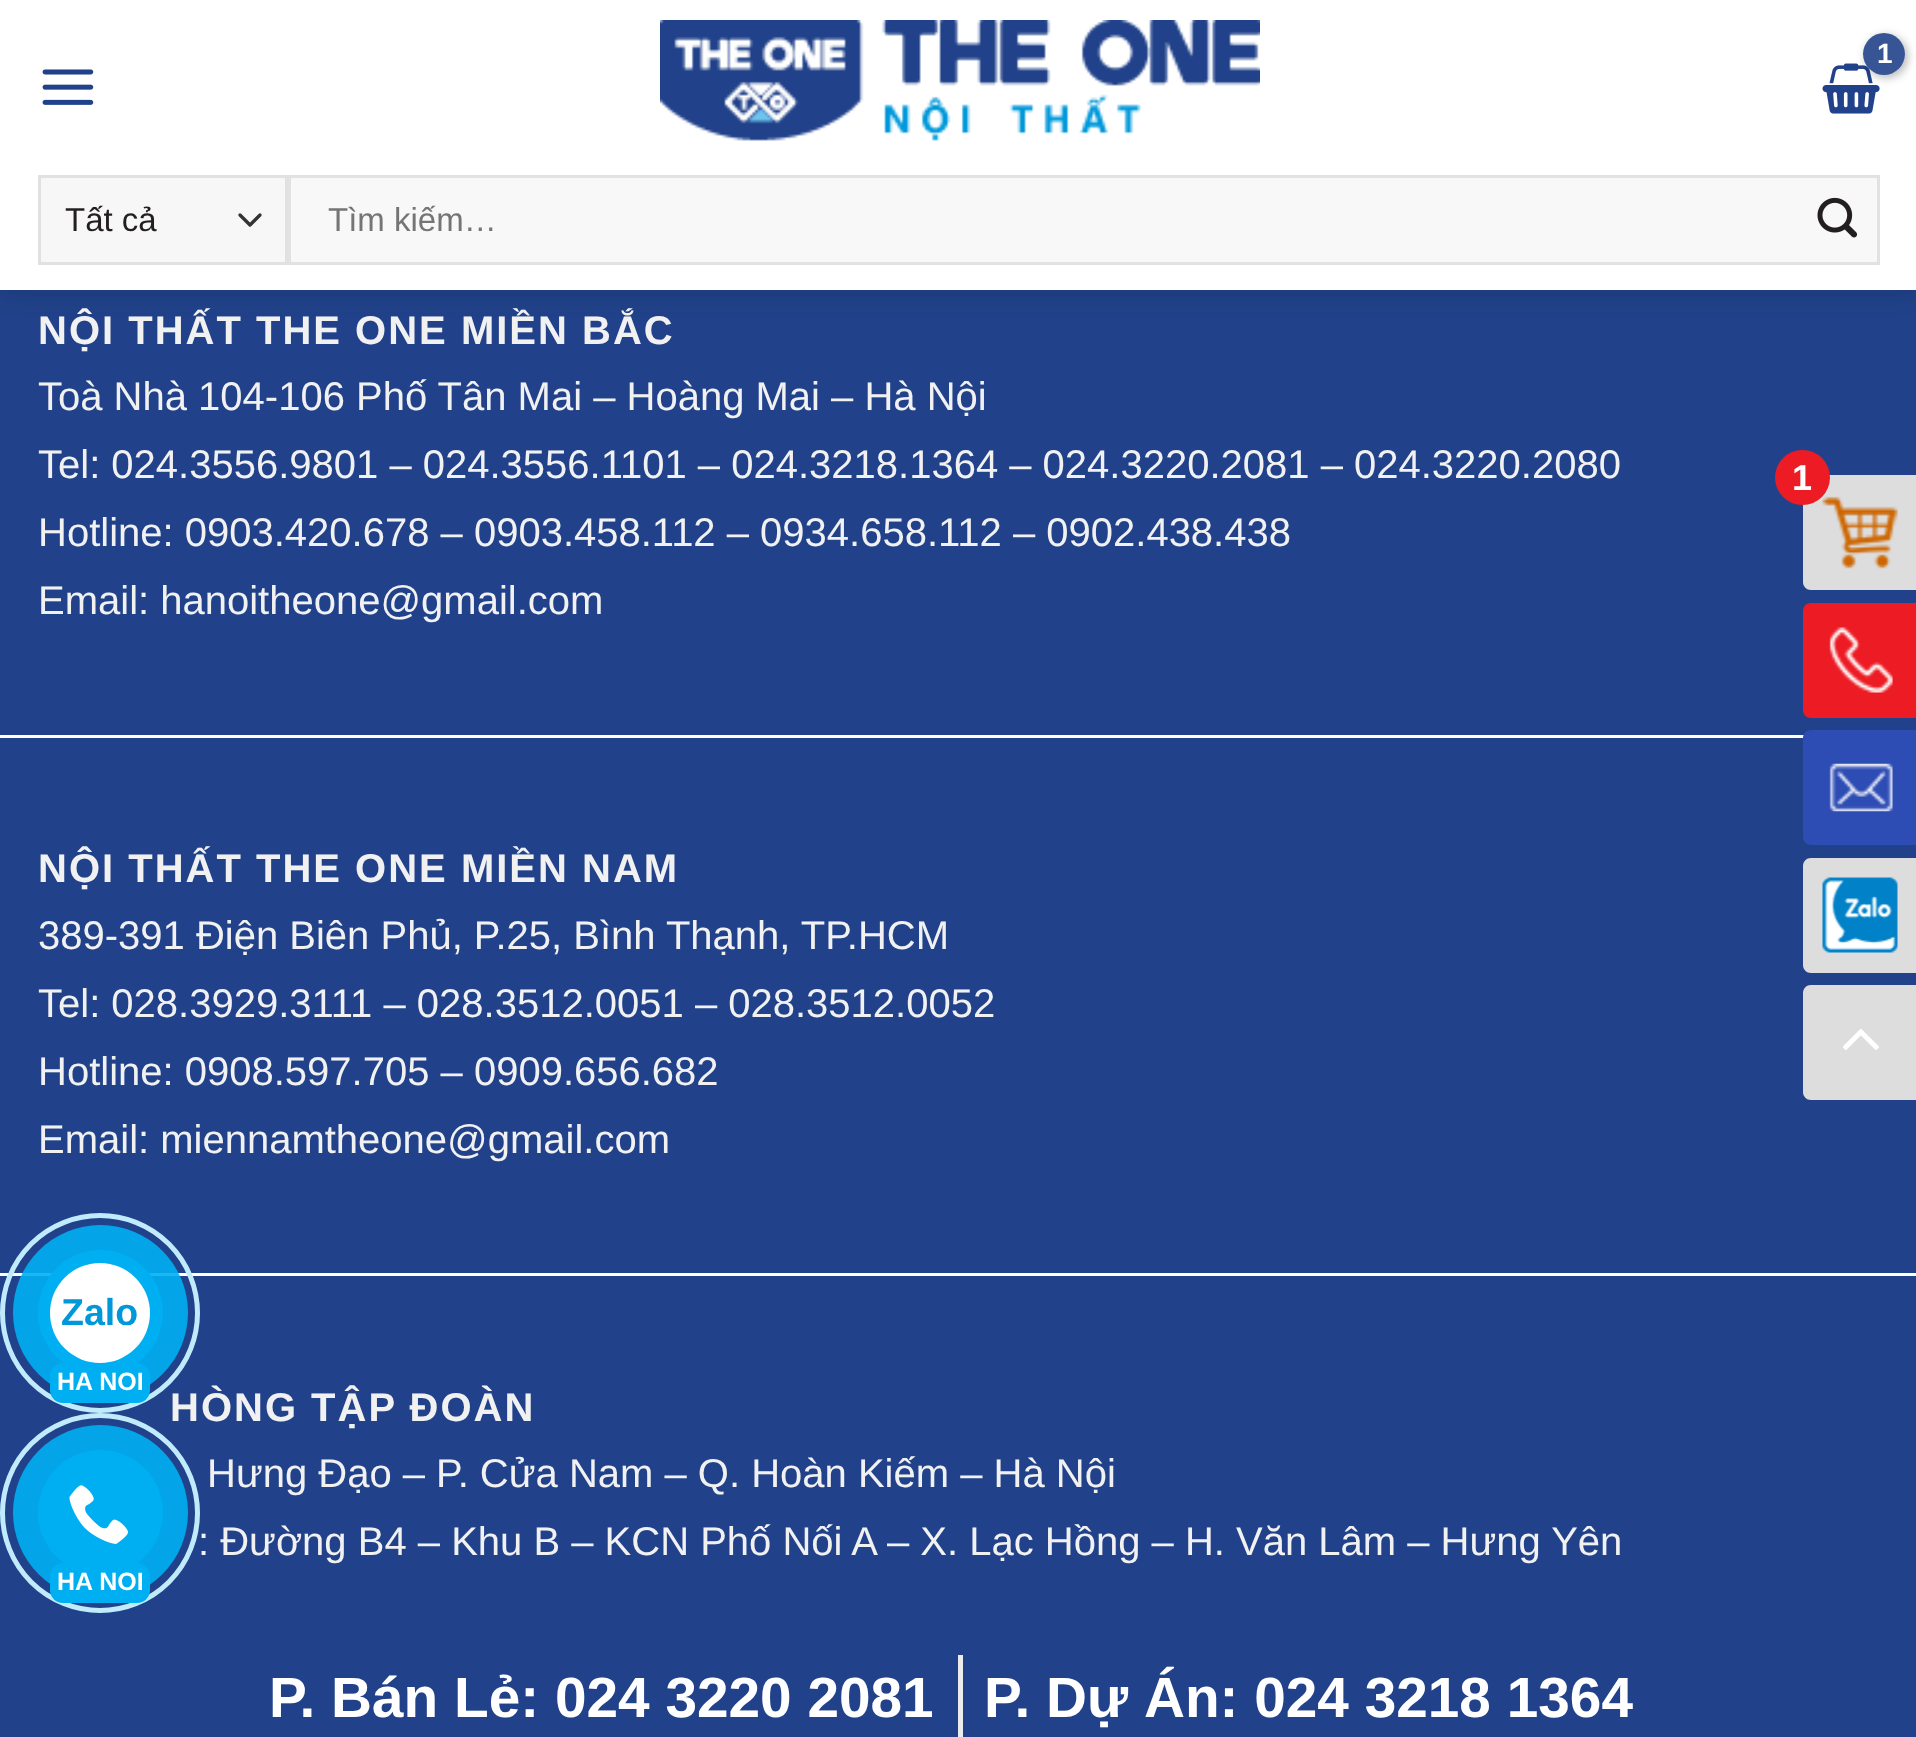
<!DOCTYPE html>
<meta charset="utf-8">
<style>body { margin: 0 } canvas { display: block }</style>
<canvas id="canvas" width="1916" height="1737"></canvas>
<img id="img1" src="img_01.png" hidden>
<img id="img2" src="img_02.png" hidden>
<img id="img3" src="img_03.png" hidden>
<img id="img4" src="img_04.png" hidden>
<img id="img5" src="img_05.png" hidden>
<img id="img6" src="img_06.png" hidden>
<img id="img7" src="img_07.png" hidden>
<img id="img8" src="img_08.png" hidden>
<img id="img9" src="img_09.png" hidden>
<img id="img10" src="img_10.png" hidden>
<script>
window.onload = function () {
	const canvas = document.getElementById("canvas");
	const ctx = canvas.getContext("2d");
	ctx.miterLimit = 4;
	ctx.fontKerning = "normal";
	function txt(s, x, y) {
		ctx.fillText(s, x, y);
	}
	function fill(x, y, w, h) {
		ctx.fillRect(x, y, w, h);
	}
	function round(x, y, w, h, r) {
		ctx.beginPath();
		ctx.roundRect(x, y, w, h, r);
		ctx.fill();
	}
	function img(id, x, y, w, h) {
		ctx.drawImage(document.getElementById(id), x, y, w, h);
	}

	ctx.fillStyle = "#21428A";
	fill(0, 0, 1916, 1737);
	ctx.fillStyle = "rgba(0, 0, 0, 0.15)";
	ctx.filter = "blur(12.5px)";
	ctx.beginPath();
	ctx.rect(3, 3, 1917, 290);
	ctx.fill();
	ctx.filter = "none";
	ctx.fillStyle = "#FFFFFF";
	fill(0, 0, 1916, 290);
	img("img1", 660, 20, 600, 121);
	img("img2", 1822, 63, 58, 51);
	ctx.save();
	ctx.beginPath();
	ctx.moveTo(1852, 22);
	ctx.lineTo(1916, 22);
	ctx.lineTo(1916, 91);
	ctx.lineTo(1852, 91);
	ctx.closePath();
	ctx.moveTo(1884, 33);
	ctx.bezierCurveTo(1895.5, 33, 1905, 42.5, 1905, 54);
	ctx.bezierCurveTo(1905, 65.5, 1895.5, 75, 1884, 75);
	ctx.bezierCurveTo(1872.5, 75, 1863, 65.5, 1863, 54);
	ctx.bezierCurveTo(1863, 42.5, 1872.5, 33, 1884, 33);
	ctx.closePath();
	ctx.clip("evenodd");
	ctx.fillStyle = "rgba(0, 0, 0, 0.27)";
	ctx.filter = "blur(4px)";
	ctx.beginPath();
	ctx.roundRect(1865, 35, 43, 43, 21.5);
	ctx.fill();
	ctx.filter = "none";
	ctx.restore();
	ctx.fillStyle = "rgba(33, 66, 138, 0.9)";
	ctx.beginPath();
	ctx.arc(1884, 54, 21, 0, Math.PI * 2);
	ctx.fill();
	img("img3", 42, 69, 52, 36);
	ctx.fillStyle = "#F7F7F7";
	fill(41, 178, 244, 84);
	ctx.beginPath();
	ctx.moveTo(240, 215);
	ctx.lineTo(250, 225);
	ctx.lineTo(260, 215);
	ctx.strokeStyle = "#333333";
	ctx.lineWidth = 3.3;
	ctx.lineCap = "round";
	ctx.lineJoin = "round";
	ctx.stroke();
	ctx.strokeStyle = "#E1E1E1";
	ctx.lineWidth = 3;
	ctx.lineJoin = "miter";
	ctx.strokeRect(39.5, 176.5, 247, 87);
	ctx.fillStyle = "#F8F8F8";
	ctx.beginPath();
	ctx.rect(289.5, 176.5, 1589, 87);
	ctx.fill();
	ctx.strokeStyle = "#E2E2E2";
	ctx.stroke();
	img("img4", 1817, 197, 41, 41);
	ctx.fillStyle = "#FFFFFF";
	fill(0, 735, 1804, 3);
	fill(0, 1273, 1916, 3);
	ctx.fillStyle = "#DDDDDD";
	ctx.beginPath();
	ctx.moveTo(1811, 475);
	ctx.lineTo(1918, 475);
	ctx.lineTo(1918, 590);
	ctx.lineTo(1811, 590);
	ctx.bezierCurveTo(1806.5, 590, 1803, 586.5, 1803, 582);
	ctx.lineTo(1803, 483);
	ctx.bezierCurveTo(1803, 478.5, 1806.5, 475, 1811, 475);
	ctx.closePath();
	ctx.fill();
	img("img5", 1822, 496, 76, 73);
	ctx.fillStyle = "#ED1C24";
	ctx.beginPath();
	ctx.arc(1802.5, 477.5, 27.5, 0, Math.PI * 2);
	ctx.fill();
	ctx.beginPath();
	ctx.moveTo(1811, 603);
	ctx.lineTo(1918, 603);
	ctx.lineTo(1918, 718);
	ctx.lineTo(1811, 718);
	ctx.bezierCurveTo(1806.5, 718, 1803, 714.5, 1803, 710);
	ctx.lineTo(1803, 611);
	ctx.bezierCurveTo(1803, 606.5, 1806.5, 603, 1811, 603);
	ctx.closePath();
	ctx.fill();
	img("img6", 1829, 627, 64, 66);
	ctx.fillStyle = "#2D4CB4";
	ctx.beginPath();
	ctx.moveTo(1811, 730);
	ctx.lineTo(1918, 730);
	ctx.lineTo(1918, 845);
	ctx.lineTo(1811, 845);
	ctx.bezierCurveTo(1806.5, 845, 1803, 841.5, 1803, 837);
	ctx.lineTo(1803, 738);
	ctx.bezierCurveTo(1803, 733.5, 1806.5, 730, 1811, 730);
	ctx.closePath();
	ctx.fill();
	img("img7", 1829, 763, 64, 49);
	ctx.fillStyle = "#DDDDDD";
	ctx.beginPath();
	ctx.moveTo(1811, 858);
	ctx.lineTo(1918, 858);
	ctx.lineTo(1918, 973);
	ctx.lineTo(1811, 973);
	ctx.bezierCurveTo(1806.5, 973, 1803, 969.5, 1803, 965);
	ctx.lineTo(1803, 866);
	ctx.bezierCurveTo(1803, 861.5, 1806.5, 858, 1811, 858);
	ctx.closePath();
	ctx.fill();
	img("img8", 1822, 877, 76, 76);
	ctx.beginPath();
	ctx.moveTo(1811, 985);
	ctx.lineTo(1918, 985);
	ctx.lineTo(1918, 1100);
	ctx.lineTo(1811, 1100);
	ctx.bezierCurveTo(1806.5, 1100, 1803, 1096.5, 1803, 1092);
	ctx.lineTo(1803, 993);
	ctx.bezierCurveTo(1803, 988.5, 1806.5, 985, 1811, 985);
	ctx.closePath();
	ctx.fill();
	img("img9", 1843, 1029, 36, 21);
	ctx.fillStyle = "#ECECEC";
	fill(958, 1655, 5, 82);
	ctx.letterSpacing = "-1px";
	ctx.font = "bold 28px Liberation Sans";
	ctx.fillStyle = "#FFFFFF";
	txt("1", 1877, 63);
	ctx.letterSpacing = "0px";
	ctx.font = "33px Liberation Sans";
	ctx.fillStyle = "#231F20";
	txt("Tất cả", 65, 231);
	ctx.fillStyle = "#757575";
	txt("Tìm kiếm…", 328, 231);
	ctx.letterSpacing = "2px";
	ctx.font = "bold 40px Liberation Sans";
	ctx.fillStyle = "#F1F1F1";
	txt("NỘI THẤT THE ONE MIỀN BẮC", 38, 344);
	ctx.letterSpacing = "0px";
	ctx.font = "40px Liberation Sans";
	txt("Toà Nhà 104-106 Phố Tân Mai – Hoàng Mai – Hà Nội", 38, 410);
	txt("Tel: 024.3556.9801 – 024.3556.1101 – 024.3218.1364 – 024.3220.2081 – 024.3220.2080", 38, 478);
	txt("Hotline: 0903.420.678 – 0903.458.112 – 0934.658.112 – 0902.438.438", 38, 546);
	txt("Email: hanoitheone@gmail.com", 38, 614);
	ctx.letterSpacing = "2px";
	ctx.font = "bold 40px Liberation Sans";
	txt("NỘI THẤT THE ONE MIỀN NAM", 38, 882);
	ctx.letterSpacing = "0px";
	ctx.font = "40px Liberation Sans";
	txt("389-391 Điện Biên Phủ, P.25, Bình Thạnh, TP.HCM", 38, 949);
	txt("Tel: 028.3929.3111 – 028.3512.0051 – 028.3512.0052", 38, 1017);
	txt("Hotline: 0908.597.705 – 0909.656.682", 38, 1085);
	txt("Email: miennamtheone@gmail.com", 38, 1153);
	ctx.letterSpacing = "2px";
	ctx.font = "bold 40px Liberation Sans";
	txt("HÒNG TẬP ĐOÀN", 170, 1421);
	ctx.letterSpacing = "0px";
	ctx.font = "40px Liberation Sans";
	txt("Hưng Đạo – P. Cửa Nam – Q. Hoàn Kiếm – Hà Nội", 207, 1487);
	txt(": Đường B4 – Khu B – KCN Phố Nối A – X. Lạc Hồng – H. Văn Lâm – Hưng Yên", 198, 1555);
	ctx.font = "bold 36px Liberation Sans";
	ctx.fillStyle = "#FFFFFF";
	txt("1", 1792, 490);
	ctx.beginPath();
	ctx.arc(100, 1313, 97.5, 0, Math.PI * 2);
	ctx.strokeStyle = "#BFEBFC";
	ctx.lineWidth = 5;
	ctx.stroke();
	ctx.fillStyle = "rgba(0, 175, 242, 0.9)";
	ctx.beginPath();
	ctx.arc(100.5, 1312.5, 87.5, 0, Math.PI * 2);
	ctx.fill();
	ctx.fillStyle = "#00AFF2";
	ctx.beginPath();
	ctx.arc(100.5, 1312.5, 62.5, 0, Math.PI * 2);
	ctx.fill();
	ctx.fillStyle = "#FFFFFF";
	ctx.beginPath();
	ctx.arc(100, 1313, 50, 0, Math.PI * 2);
	ctx.fill();
	ctx.font = "bold 37.5px Liberation Sans";
	ctx.fillStyle = "#0098D8";
	txt("Zalo", 61, 1325);
	ctx.fillStyle = "#00AFF2";
	round(50, 1363, 100, 40, 13);
	ctx.font = "bold 25px Liberation Sans";
	ctx.fillStyle = "#FFFFFF";
	txt("HA NOI", 57, 1390);
	ctx.beginPath();
	ctx.arc(100, 1513, 97.5, 0, Math.PI * 2);
	ctx.stroke();
	ctx.fillStyle = "rgba(0, 175, 242, 0.9)";
	ctx.beginPath();
	ctx.arc(100.5, 1512.5, 87.5, 0, Math.PI * 2);
	ctx.fill();
	ctx.fillStyle = "#00AFF2";
	ctx.beginPath();
	ctx.arc(100.5, 1512.5, 62.5, 0, Math.PI * 2);
	ctx.fill();
	img("img10", 69, 1485, 59, 59);
	round(50, 1563, 100, 40, 13);
	ctx.fillStyle = "#FFFFFF";
	txt("HA NOI", 57, 1590);
	ctx.font = "bold 56.75px Liberation Sans";
	txt("P. Bán Lẻ: 024 3220 2081", 269, 1717);
	txt("P. Dự Án: 024 3218 1364", 984, 1717);
};
</script>
